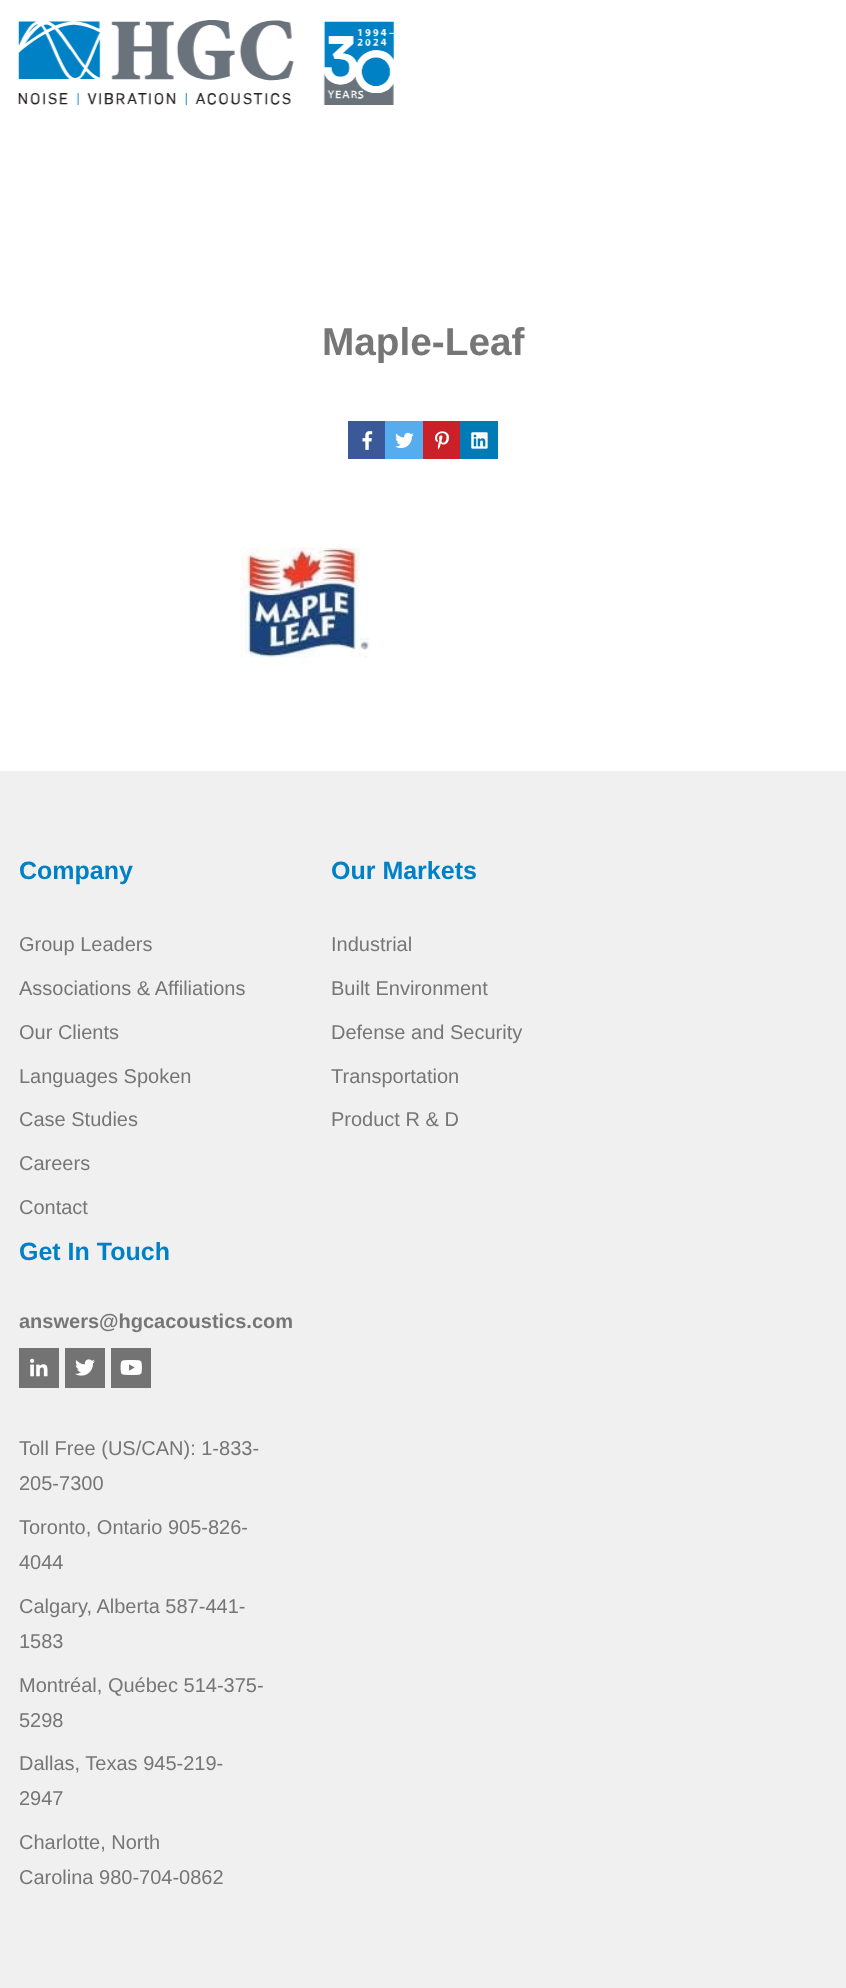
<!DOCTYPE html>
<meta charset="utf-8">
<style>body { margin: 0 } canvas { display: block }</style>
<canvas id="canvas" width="846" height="1988"></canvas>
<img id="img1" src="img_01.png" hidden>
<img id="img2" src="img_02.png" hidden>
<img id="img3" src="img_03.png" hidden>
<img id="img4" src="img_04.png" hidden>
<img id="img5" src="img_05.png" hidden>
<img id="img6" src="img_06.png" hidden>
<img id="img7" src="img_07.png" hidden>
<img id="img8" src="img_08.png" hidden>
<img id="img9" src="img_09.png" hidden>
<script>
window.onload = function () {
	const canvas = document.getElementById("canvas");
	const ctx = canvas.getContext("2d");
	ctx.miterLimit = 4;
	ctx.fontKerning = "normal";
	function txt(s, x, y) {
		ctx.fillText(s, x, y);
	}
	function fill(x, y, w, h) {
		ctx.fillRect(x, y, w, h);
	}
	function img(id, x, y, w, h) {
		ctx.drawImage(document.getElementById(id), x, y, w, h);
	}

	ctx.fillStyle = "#FFFFFF";
	fill(0, 0, 846, 1988);
	img("img1", 18, 20, 376, 85);
	ctx.fillStyle = "#3B5998";
	fill(348, 421, 37, 38);
	img("img2", 362, 431, 11, 19);
	ctx.fillStyle = "#55ACEE";
	fill(385, 421, 38, 38);
	img("img3", 395, 432, 19, 17);
	ctx.fillStyle = "#CB2027";
	fill(423, 421, 37, 38);
	img("img4", 435, 431, 15, 19);
	ctx.fillStyle = "#007BB5";
	fill(460, 421, 38, 38);
	img("img5", 471, 432, 17, 17);
	img("img6", 240, 547, 130, 117);
	ctx.fillStyle = "#F0F0F0";
	fill(0, 771, 846, 1217);
	ctx.fillStyle = "#737373";
	fill(19, 1348, 40, 40);
	img("img7", 30, 1358, 18, 19);
	fill(65, 1348, 40, 40);
	img("img8", 75, 1359, 20, 17);
	fill(111, 1348, 40, 40);
	img("img9", 120, 1360, 22, 15);
	ctx.font = "bold 38.75px Liberation Sans";
	ctx.fillStyle = "#767676";
	txt("Maple-Leaf", 322, 355);
	ctx.font = "bold 25px Liberation Sans";
	ctx.fillStyle = "#0081C6";
	txt("Company", 19, 879);
	ctx.font = "20px Liberation Sans";
	ctx.fillStyle = "#767676";
	txt("Group Leaders", 19, 951);
	txt("Associations & Affiliations", 19, 995);
	txt("Our Clients", 19, 1039);
	txt("Languages Spoken", 19, 1083);
	txt("Case Studies", 19, 1126);
	txt("Careers", 19, 1170);
	txt("Contact", 19, 1214);
	ctx.font = "bold 25px Liberation Sans";
	ctx.fillStyle = "#0081C6";
	txt("Our Markets", 331, 879);
	ctx.font = "20px Liberation Sans";
	ctx.fillStyle = "#767676";
	txt("Industrial", 331, 951);
	txt("Built Environment", 331, 995);
	txt("Defense and Security", 331, 1039);
	txt("Transportation", 331, 1083);
	txt("Product R & D", 331, 1126);
	ctx.font = "bold 25px Liberation Sans";
	ctx.fillStyle = "#0081C6";
	txt("Get In Touch", 19, 1260);
	ctx.font = "bold 20px Liberation Sans";
	ctx.fillStyle = "#767676";
	txt("answers@hgcacoustics.com", 19, 1328);
	ctx.font = "20px Liberation Sans";
	txt("Toll Free (US/CAN): 1-833-", 19, 1455);
	txt("205-7300", 19, 1490);
	txt("Toronto, Ontario 905-826-", 19, 1534);
	txt("4044", 19, 1569);
	txt("Calgary, Alberta 587-441-", 19, 1613);
	txt("1583", 19, 1648);
	txt("Montréal, Québec 514-375-", 19, 1692);
	txt("5298", 19, 1727);
	txt("Dallas, Texas 945-219-", 19, 1770);
	txt("2947", 19, 1805);
	txt("Charlotte, North", 19, 1849);
	txt("Carolina 980-704-0862", 19, 1884);
};
</script>
